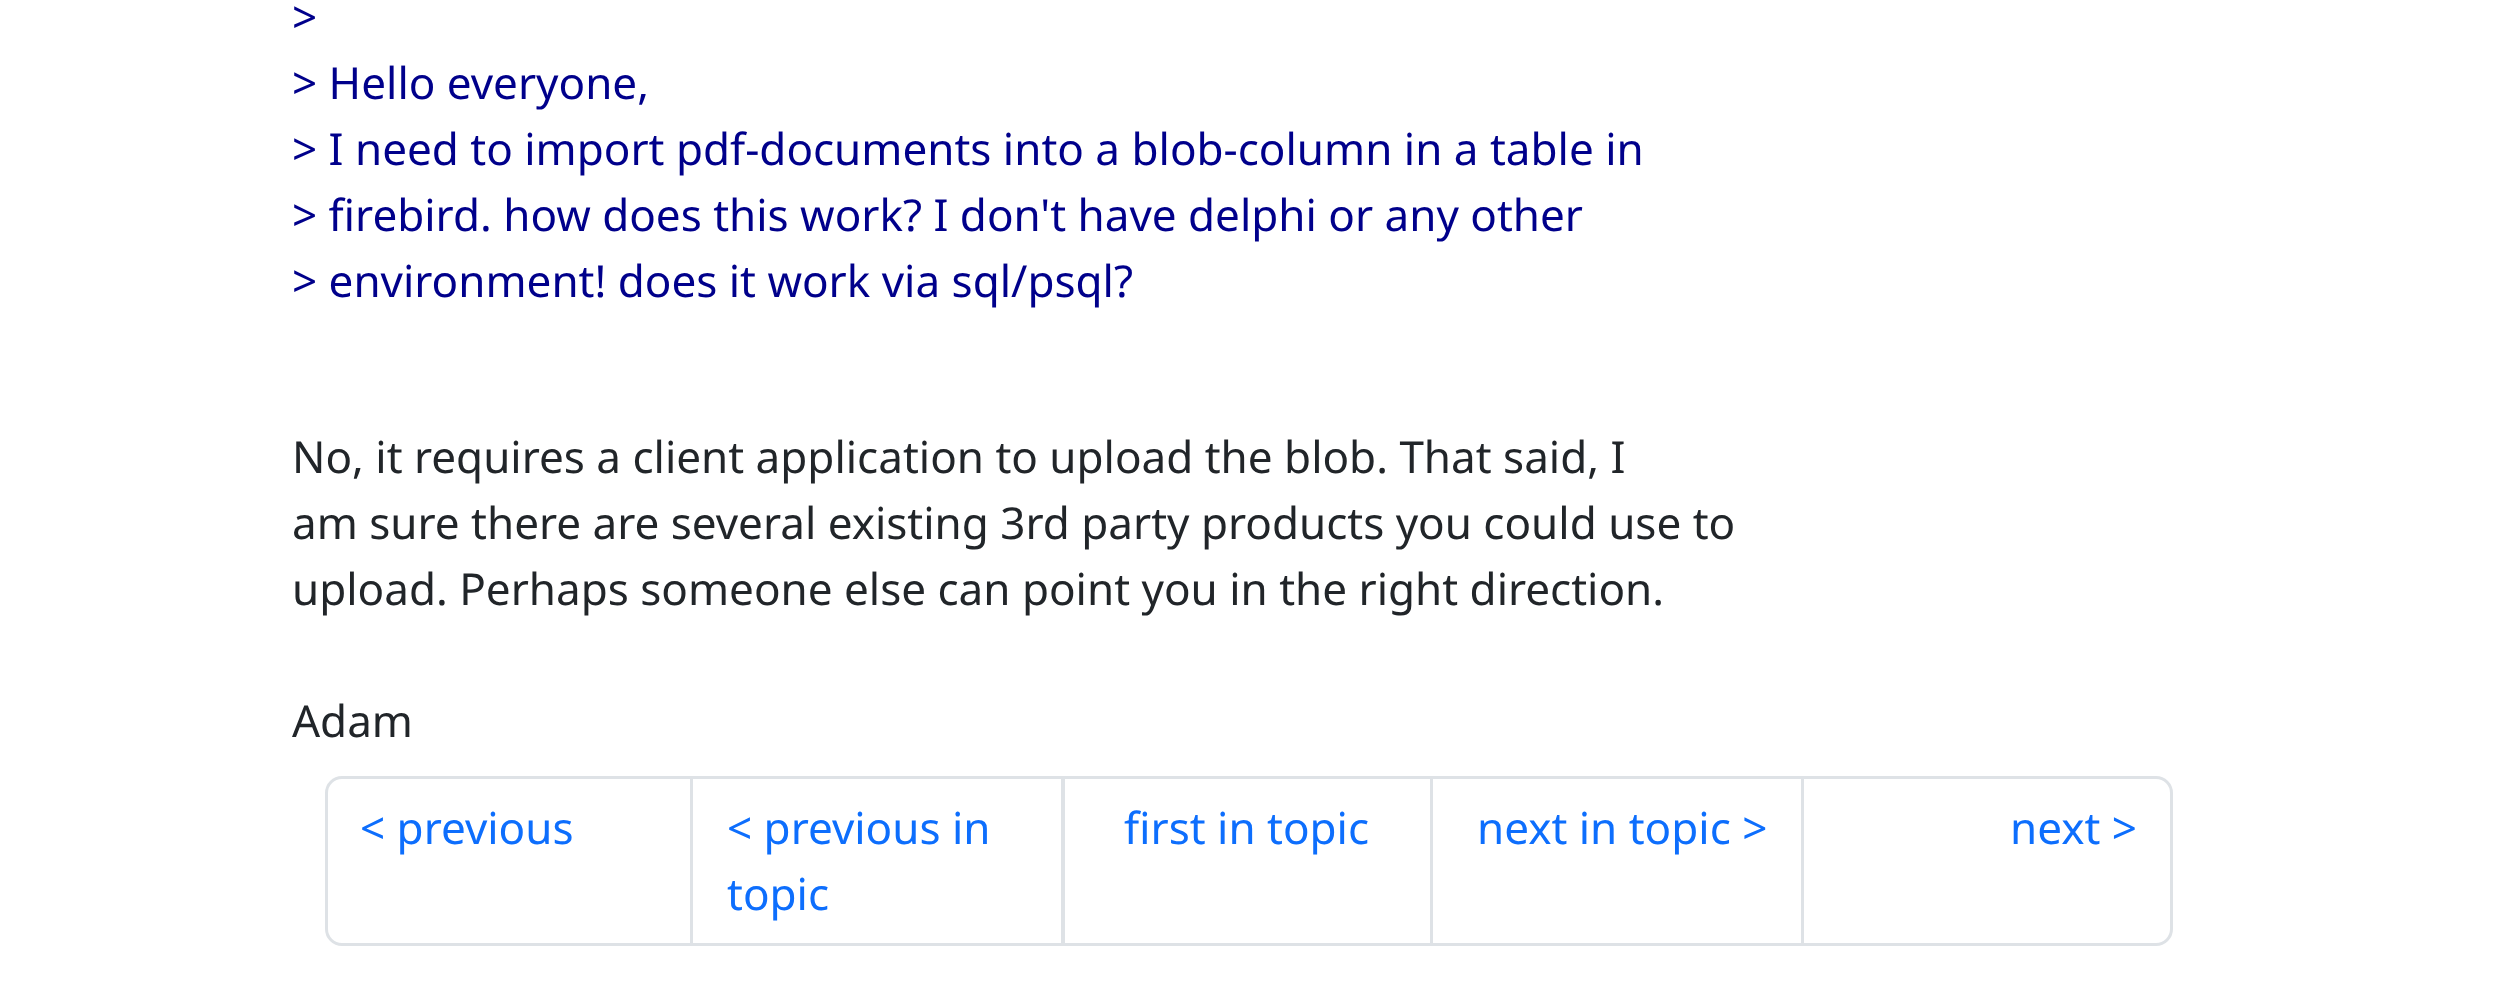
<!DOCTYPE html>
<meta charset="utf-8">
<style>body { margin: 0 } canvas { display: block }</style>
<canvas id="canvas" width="2496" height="990"></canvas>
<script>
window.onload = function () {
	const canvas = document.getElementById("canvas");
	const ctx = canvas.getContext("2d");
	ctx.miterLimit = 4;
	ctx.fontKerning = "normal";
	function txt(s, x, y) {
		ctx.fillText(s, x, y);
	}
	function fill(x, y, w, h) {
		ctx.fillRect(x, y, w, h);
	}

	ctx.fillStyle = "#FFFFFF";
	fill(0, 0, 2496, 990);
	ctx.beginPath();
	ctx.roundRect(326.5, 777.5, 365, 167, [15.5, 0, 0, 15.5]);
	ctx.strokeStyle = "#DEE2E6";
	ctx.lineWidth = 3;
	ctx.stroke();
	ctx.strokeRect(691.5, 777.5, 371, 167);
	ctx.strokeRect(1063.5, 777.5, 368, 167);
	ctx.strokeRect(1431.5, 777.5, 371, 167);
	ctx.beginPath();
	ctx.roundRect(1802.5, 777.5, 369, 167, [0, 15.5, 15.5, 0]);
	ctx.fill();
	ctx.stroke();
	ctx.font = "44px Noto Sans";
	ctx.fillStyle = "#00008B";
	txt(">", 292, 33);
	txt("> Hello everyone,", 292, 99);
	txt("> I need to import pdf-documents into a blob-column in a table in", 292, 165);
	txt("> firebird. how does this work? I don't have delphi or any other", 292, 231);
	txt("> environment! does it work via sql/psql?", 292, 297);
	ctx.fillStyle = "#212529";
	txt("No, it requires a client application to upload the blob. That said, I", 292, 473);
	txt("am sure there are several existing 3rd party products you could use to", 292, 539);
	txt("upload. Perhaps someone else can point you in the right direction.", 292, 605);
	txt("Adam", 292, 737);
	ctx.fillStyle = "#0D6EFD";
	txt("< previous", 360, 844);
	txt("< previous in", 727, 844);
	txt("topic", 727, 910);
	txt("first in topic", 1124, 844);
	txt("next in topic >", 1477, 844);
	txt("next >", 2010, 844);
};
</script>
